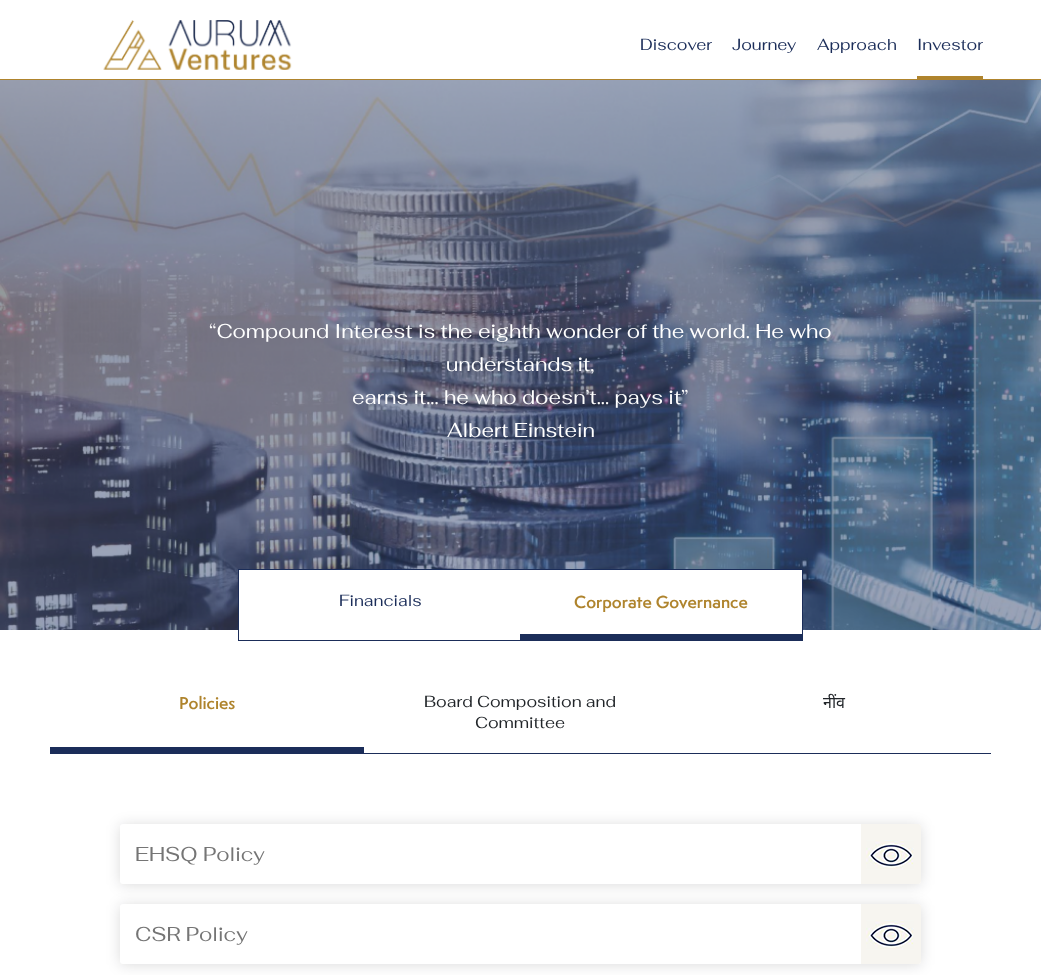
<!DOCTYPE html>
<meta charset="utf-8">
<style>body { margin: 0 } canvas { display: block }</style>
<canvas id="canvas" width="1041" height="975"></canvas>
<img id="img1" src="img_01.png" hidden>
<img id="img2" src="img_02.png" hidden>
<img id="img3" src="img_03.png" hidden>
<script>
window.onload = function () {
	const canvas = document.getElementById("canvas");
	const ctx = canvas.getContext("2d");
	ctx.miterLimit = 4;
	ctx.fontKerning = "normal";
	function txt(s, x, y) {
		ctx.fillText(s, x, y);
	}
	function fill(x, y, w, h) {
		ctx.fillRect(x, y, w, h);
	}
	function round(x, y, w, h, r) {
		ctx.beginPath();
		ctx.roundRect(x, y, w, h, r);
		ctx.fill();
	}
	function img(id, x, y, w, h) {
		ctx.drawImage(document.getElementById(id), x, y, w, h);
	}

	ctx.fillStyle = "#FFFFFF";
	fill(0, 0, 1041, 975);
	ctx.fillStyle = "#AF842D";
	fill(0, 79, 1041, 1);
	img("img1", 103, 20, 189, 50);
	fill(917, 76, 66, 3);
	img("img2", 0, 80, 1041, 550);
	ctx.fillStyle = "#FFFFFF";
	fill(239, 570, 563, 60);
	ctx.fillStyle = "#1B2D59";
	fill(238, 569, 565, 1);
	fill(238, 640, 282, 1);
	fill(238, 569, 1, 72);
	fill(802, 569, 1, 72);
	fill(520, 634, 283, 7);
	fill(50, 747, 314, 7);
	fill(364, 753, 627, 1);
	ctx.fillStyle = "rgba(16, 12, 23, 0.15)";
	ctx.filter = "blur(7px)";
	ctx.beginPath();
	ctx.roundRect(120, 825, 801, 60, 3);
	ctx.fill();
	ctx.filter = "none";
	ctx.fillStyle = "#FFFFFF";
	round(120, 824, 801, 60, 3);
	ctx.fillStyle = "#F7F5F0";
	ctx.beginPath();
	ctx.roundRect(861, 824, 60, 60, [0, 3, 3, 0]);
	ctx.fill();
	img("img3", 866, 840, 48, 30);
	ctx.fillStyle = "rgba(16, 12, 23, 0.15)";
	ctx.filter = "blur(7px)";
	ctx.beginPath();
	ctx.roundRect(120, 905, 801, 60, 3);
	ctx.fill();
	ctx.filter = "none";
	ctx.fillStyle = "#FFFFFF";
	round(120, 904, 801, 60, 3);
	ctx.fillStyle = "#F7F5F0";
	ctx.beginPath();
	ctx.roundRect(861, 904, 60, 60, [0, 3, 3, 0]);
	ctx.fill();
	img("img3", 866, 920, 48, 30);
	ctx.font = "16px Fahkwang";
	ctx.fillStyle = "#1B2D59";
	txt("Discover", 640, 50);
	txt("Journey", 732, 50);
	txt("Approach", 817, 50);
	txt("Investor", 917, 50);
	ctx.font = "20px Fahkwang";
	ctx.fillStyle = "#FFFFFF";
	txt("“Compound Interest is the eighth wonder of the world. He who", 209, 338);
	txt("understands it,", 446, 371);
	txt("earns it... he who doesn’t... pays it”", 352, 404);
	txt("Albert Einstein", 447, 437);
	ctx.font = "16px Fahkwang";
	ctx.fillStyle = "#1B2D59";
	txt("Financials", 339, 606);
	ctx.font = "600 16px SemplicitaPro";
	ctx.fillStyle = "#AF842D";
	txt("Corporate Governance", 574, 608);
	txt("Policies", 179, 709);
	ctx.font = "16px Fahkwang";
	ctx.fillStyle = "#212529";
	txt("Board Composition and", 424, 707);
	txt("Committee", 475, 728);
	ctx.font = "16px Noto Sans";
	txt("नींव", 823, 708);
	ctx.font = "20px Fahkwang";
	ctx.fillStyle = "#757575";
	txt("EHSQ Policy", 135, 861);
	txt("CSR Policy", 135, 941);
};
</script>
